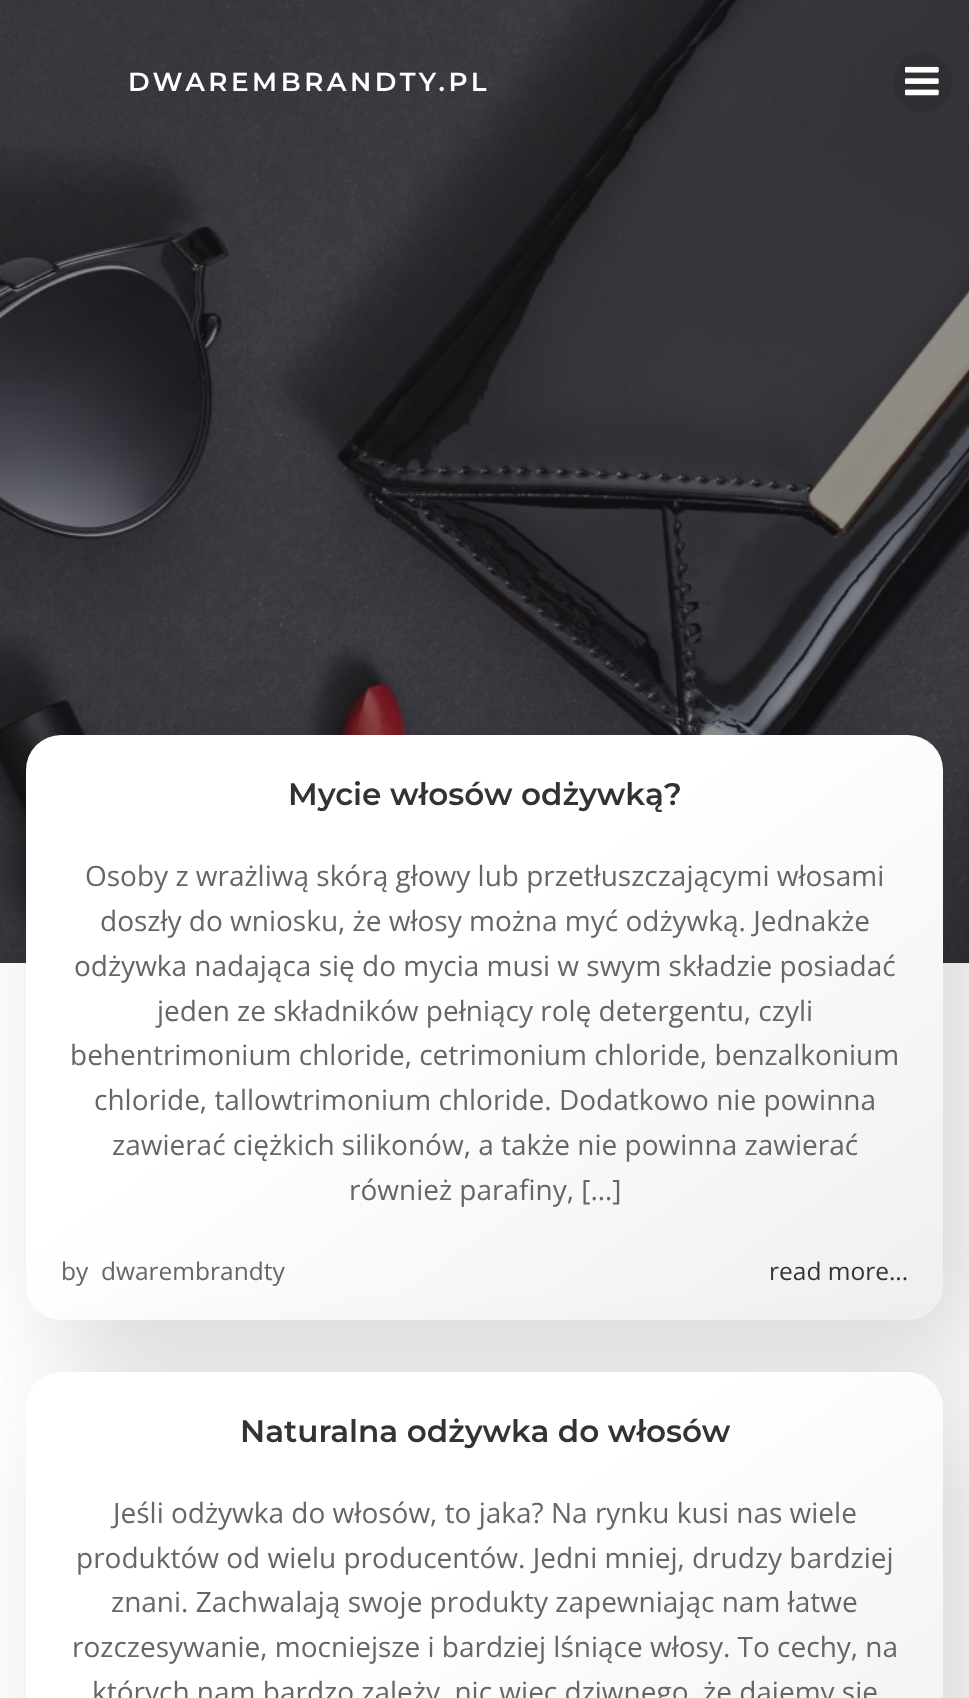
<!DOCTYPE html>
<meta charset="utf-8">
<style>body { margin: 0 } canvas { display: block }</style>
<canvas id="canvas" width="969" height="1698"></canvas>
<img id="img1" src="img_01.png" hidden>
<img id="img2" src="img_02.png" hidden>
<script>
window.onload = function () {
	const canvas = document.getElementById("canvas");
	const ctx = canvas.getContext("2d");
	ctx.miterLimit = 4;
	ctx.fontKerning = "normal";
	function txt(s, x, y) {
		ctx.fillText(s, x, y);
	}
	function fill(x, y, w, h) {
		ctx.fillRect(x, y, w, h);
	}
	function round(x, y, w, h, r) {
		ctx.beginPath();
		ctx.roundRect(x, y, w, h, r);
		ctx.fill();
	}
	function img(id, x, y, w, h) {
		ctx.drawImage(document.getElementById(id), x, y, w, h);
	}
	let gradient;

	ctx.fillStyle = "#FFFFFF";
	fill(0, 0, 969, 1698);
	img("img1", 0, 0, 969, 963);
	ctx.fillStyle = "#2E2E33";
	ctx.beginPath();
	ctx.arc(922.5, 82.5, 29.5, 0, Math.PI * 2);
	ctx.fill();
	img("img2", 905, 66, 34, 30);
	ctx.fillStyle = "rgba(0, 0, 0, 0.15)";
	ctx.filter = "blur(52.5px)";
	ctx.beginPath();
	ctx.roundRect(58, 767, 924, 591, 39);
	ctx.fill();
	ctx.filter = "none";
	gradient = ctx.createLinearGradient(197, 616, 773, 1439);
	gradient.addColorStop(0.42, "#FFFFFF");
	gradient.addColorStop(1, "#EFEFEF");
	ctx.fillStyle = gradient;
	round(26, 735, 917, 585, 35);
	ctx.fillStyle = "rgba(0, 0, 0, 0.15)";
	ctx.filter = "blur(52.5px)";
	ctx.beginPath();
	ctx.roundRect(58, 1404, 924, 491, 39);
	ctx.fill();
	ctx.filter = "none";
	gradient = ctx.createLinearGradient(207, 1245, 762, 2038);
	gradient.addColorStop(0.42, "#FFFFFF");
	gradient.addColorStop(1, "#EFEFEF");
	ctx.fillStyle = gradient;
	round(26, 1372, 917, 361, 35);
	ctx.letterSpacing = "3.5px";
	ctx.font = "600 26.25px Montserrat";
	ctx.fillStyle = "#FFFFFF";
	txt("DWAREMBRANDTY.PL", 128, 91);
	ctx.letterSpacing = "0px";
	ctx.font = "600 31.1px Montserrat";
	ctx.fillStyle = "#333333";
	txt("Mycie włosów odżywką?", 288, 805);
	ctx.font = "28px Open Sans";
	ctx.fillStyle = "#666666";
	txt("Osoby z wrażliwą skórą głowy lub przetłuszczającymi włosami", 85, 886);
	txt("doszły do wniosku, że włosy można myć odżywką. Jednakże", 100, 931);
	txt("odżywka nadająca się do mycia musi w swym składzie posiadać", 74, 976);
	txt("jeden ze składników pełniący rolę detergentu, czyli", 157, 1021);
	txt("behentrimonium chloride, cetrimonium chloride, benzalkonium", 70, 1065);
	txt("chloride, tallowtrimonium chloride. Dodatkowo nie powinna", 94, 1110);
	txt("zawierać ciężkich silikonów, a także nie powinna zawierać", 112, 1155);
	txt("również parafiny, […]", 349, 1200);
	ctx.font = "24.5px Open Sans";
	txt("by", 61, 1280);
	txt("dwarembrandty", 101, 1280);
	ctx.fillStyle = "#333333";
	txt("read more...", 769, 1280);
	ctx.font = "600 31.1px Montserrat";
	txt("Naturalna odżywka do włosów", 240, 1442);
	ctx.font = "28px Open Sans";
	ctx.fillStyle = "#666666";
	txt("Jeśli odżywka do włosów, to jaka? Na rynku kusi nas wiele", 113, 1523);
	txt("produktów od wielu producentów. Jedni mniej, drudzy bardziej", 76, 1568);
	txt("znani. Zachwalają swoje produkty zapewniając nam łatwe", 111, 1612);
	txt("rozczesywanie, mocniejsze i bardziej lśniące włosy. To cechy, na", 72, 1657);
	txt("których nam bardzo zależy, nic więc dziwnego, że dajemy się", 92, 1702);
};
</script>
